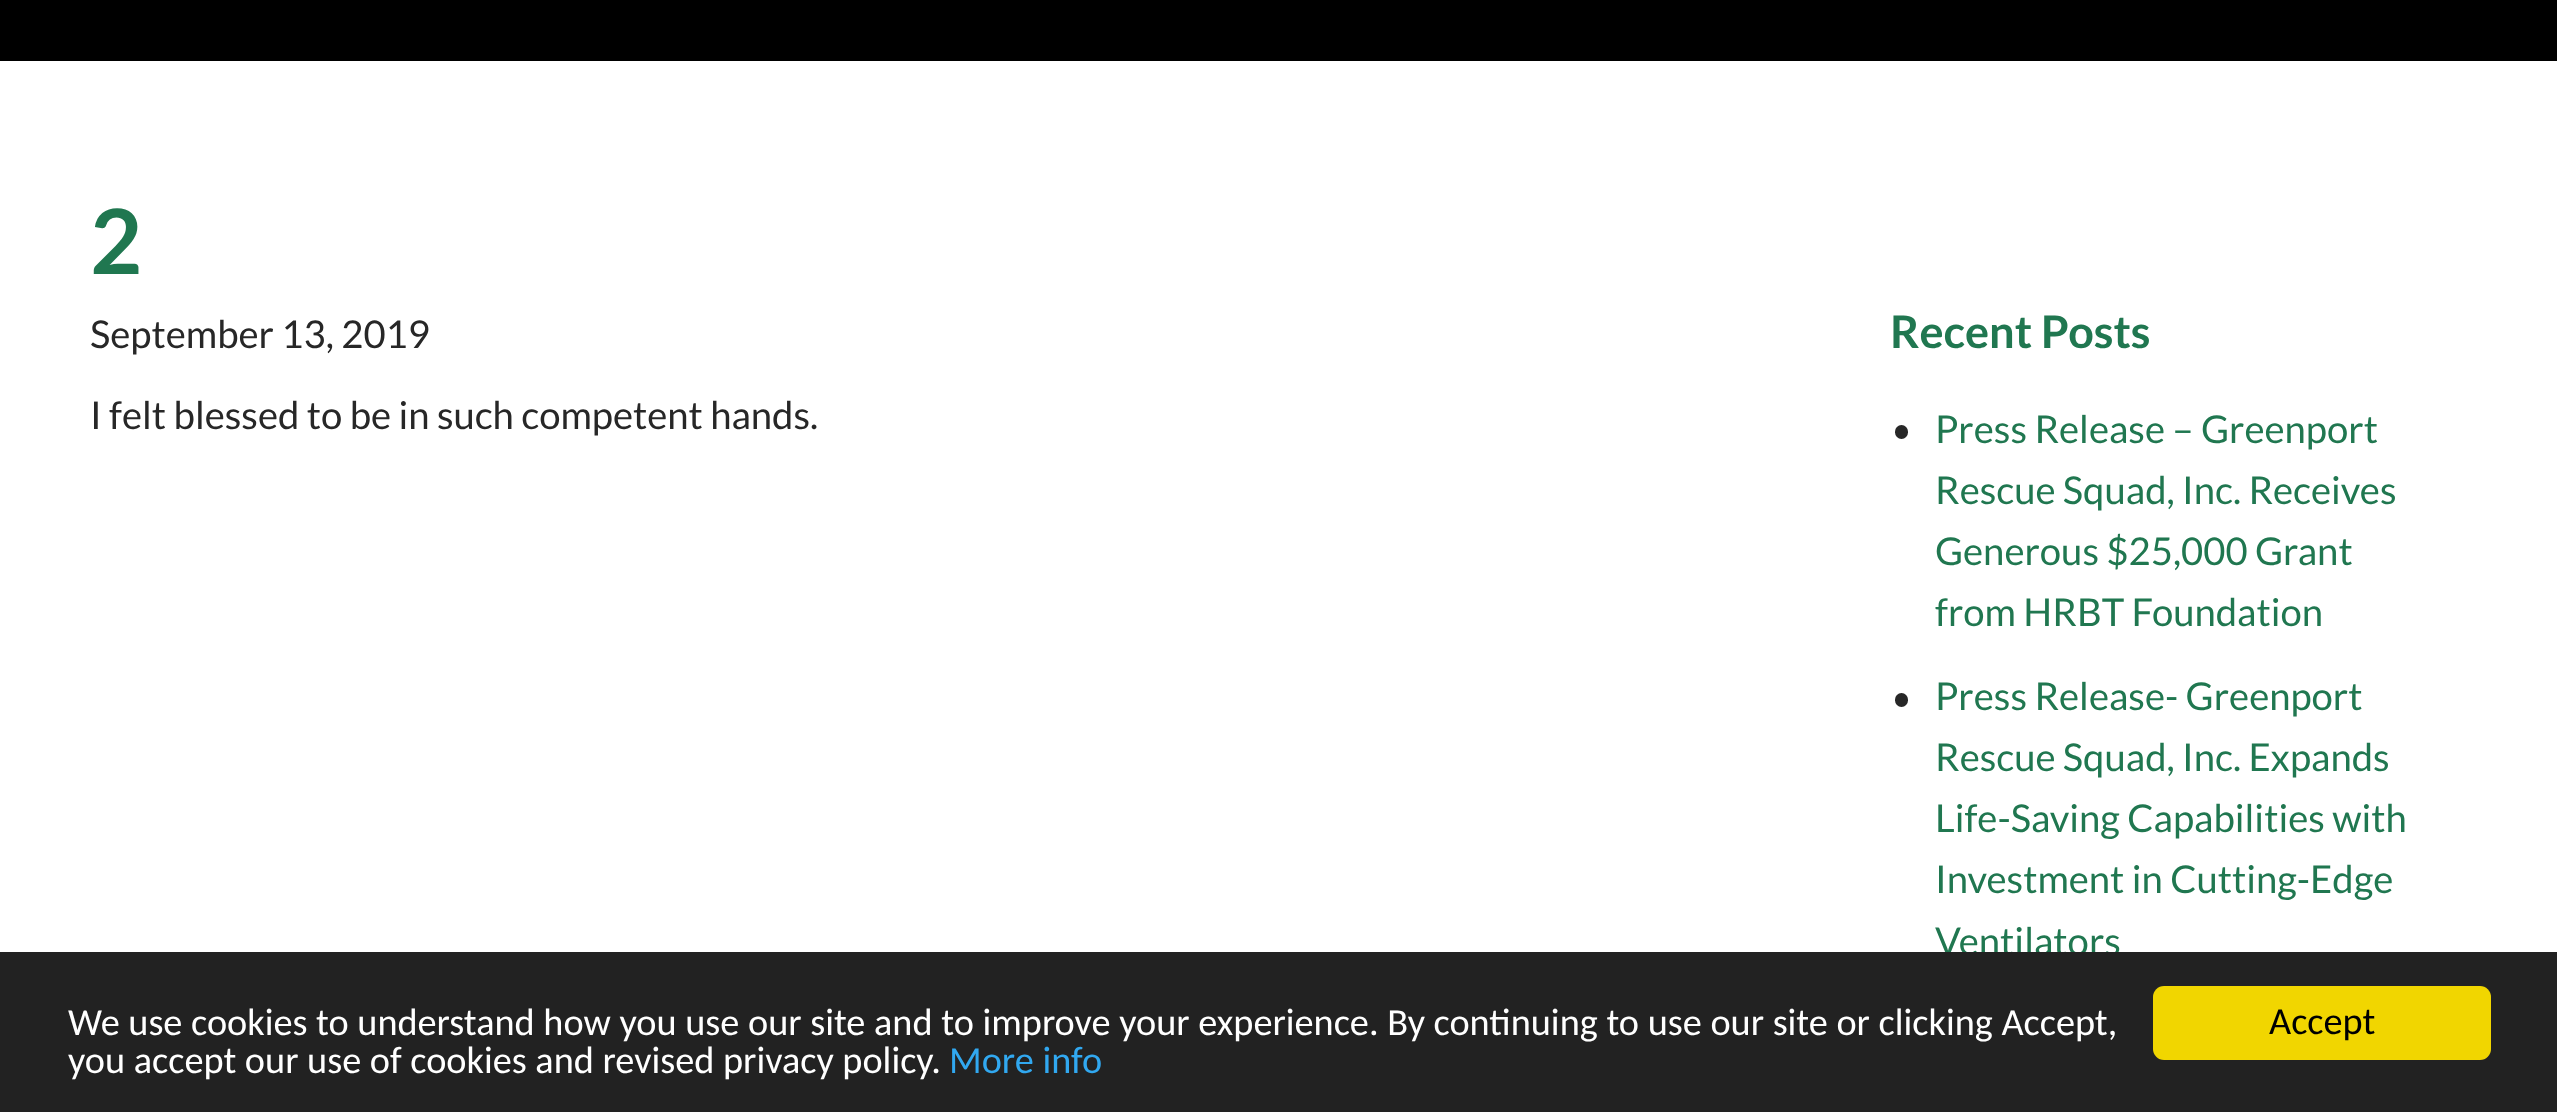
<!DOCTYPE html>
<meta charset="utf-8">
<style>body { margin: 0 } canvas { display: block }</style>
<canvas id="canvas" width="2557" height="1112"></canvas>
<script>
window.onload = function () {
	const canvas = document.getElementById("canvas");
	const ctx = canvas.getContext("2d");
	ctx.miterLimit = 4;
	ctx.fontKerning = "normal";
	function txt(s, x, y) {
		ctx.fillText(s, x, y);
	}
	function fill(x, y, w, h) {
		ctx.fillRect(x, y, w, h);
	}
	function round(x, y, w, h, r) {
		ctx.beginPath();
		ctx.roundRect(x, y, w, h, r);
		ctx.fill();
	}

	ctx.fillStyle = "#FFFFFF";
	fill(0, 0, 2557, 1112);
	ctx.fillStyle = "#000000";
	fill(0, 0, 2557, 61);
	ctx.fillStyle = "#272727";
	round(1895, 425, 13, 14, 6.5);
	round(1895, 693, 13, 14, 6.5);
	ctx.font = "bold 90px Lato";
	ctx.fillStyle = "#207750";
	txt("2", 90, 274);
	ctx.font = "38.25px Lato";
	ctx.fillStyle = "#272727";
	txt("September 13, 2019", 90, 348);
	txt("I felt blessed to be in such competent hands.", 90, 429);
	ctx.font = "bold 45px Lato";
	ctx.fillStyle = "#207750";
	txt("Recent Posts", 1890, 348);
	ctx.font = "38.25px Lato";
	txt("Press Release – Greenport", 1935, 443);
	txt("Rescue Squad, Inc. Receives", 1935, 504);
	txt("Generous $25,000 Grant", 1935, 565);
	txt("from HRBT Foundation", 1935, 626);
	txt("Press Release- Greenport", 1935, 710);
	txt("Rescue Squad, Inc. Expands", 1935, 771);
	txt("Life-Saving Capabilities with", 1935, 832);
	txt("Investment in Cutting-Edge", 1935, 893);
	txt("Ventilators", 1935, 955);
	ctx.fillStyle = "#222222";
	fill(0, 952, 2557, 160);
	ctx.font = "38.25px Carlito";
	ctx.fillStyle = "#FFFFFF";
	txt("We use cookies to understand how you use our site and to improve your experience. By continuing to use our site or clicking Accept,", 68, 1035);
	txt("you accept our use of cookies and revised privacy policy.", 68, 1073);
	ctx.fillStyle = "#31A8F0";
	txt("More info", 949, 1073);
	ctx.fillStyle = "#F1D600";
	round(2153, 986, 338, 74, 11);
	ctx.fillStyle = "#000000";
	txt("Accept", 2269, 1034);
};
</script>
